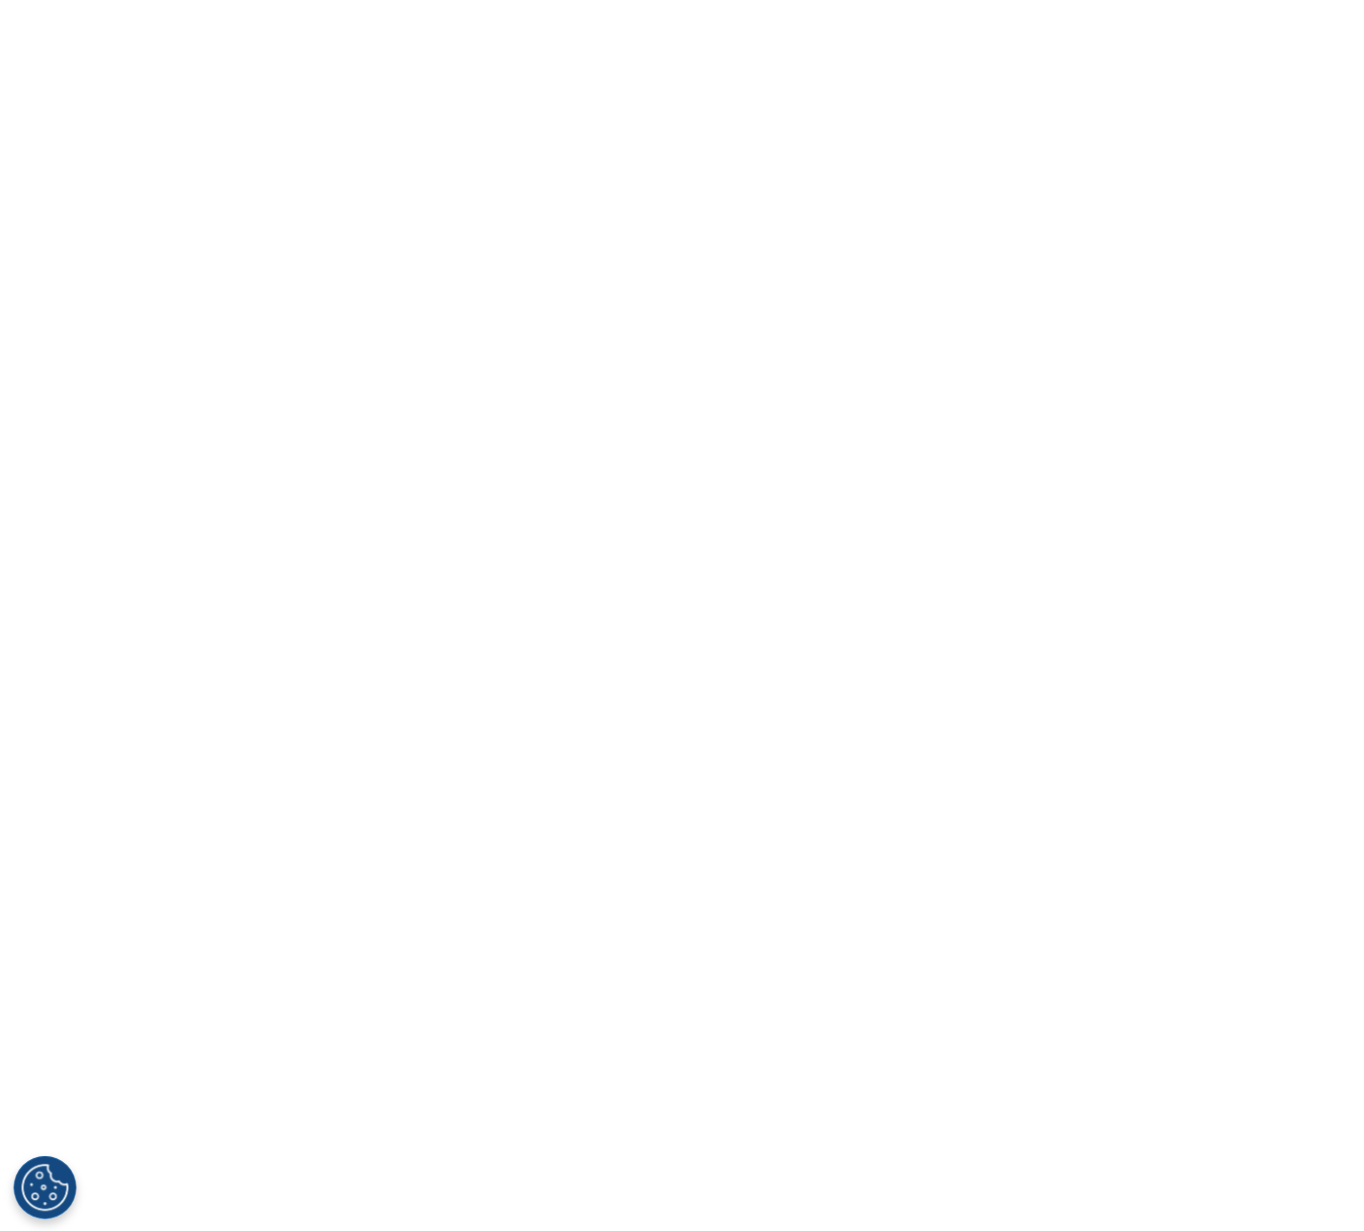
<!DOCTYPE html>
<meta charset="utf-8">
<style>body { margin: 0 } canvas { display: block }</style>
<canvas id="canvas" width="1364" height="1231"></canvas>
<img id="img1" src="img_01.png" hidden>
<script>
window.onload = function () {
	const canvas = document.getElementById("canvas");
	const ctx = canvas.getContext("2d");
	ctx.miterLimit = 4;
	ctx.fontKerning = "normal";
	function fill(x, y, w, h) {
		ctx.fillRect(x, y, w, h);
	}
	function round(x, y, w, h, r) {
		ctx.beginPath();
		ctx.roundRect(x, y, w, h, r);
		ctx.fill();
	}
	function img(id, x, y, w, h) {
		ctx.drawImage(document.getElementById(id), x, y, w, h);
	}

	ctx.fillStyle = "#FFFFFF";
	fill(0, 0, 1364, 1231);
	ctx.fillStyle = "rgba(0, 0, 0, 0.2)";
	ctx.filter = "blur(5px)";
	ctx.beginPath();
	ctx.roundRect(14, 1161, 62, 63, 31);
	ctx.fill();
	ctx.filter = "none";
	ctx.fillStyle = "#6AAAE4";
	round(14, 1156, 62, 63, 31);
	img("img1", 13, 1156, 64, 64);
};
</script>
